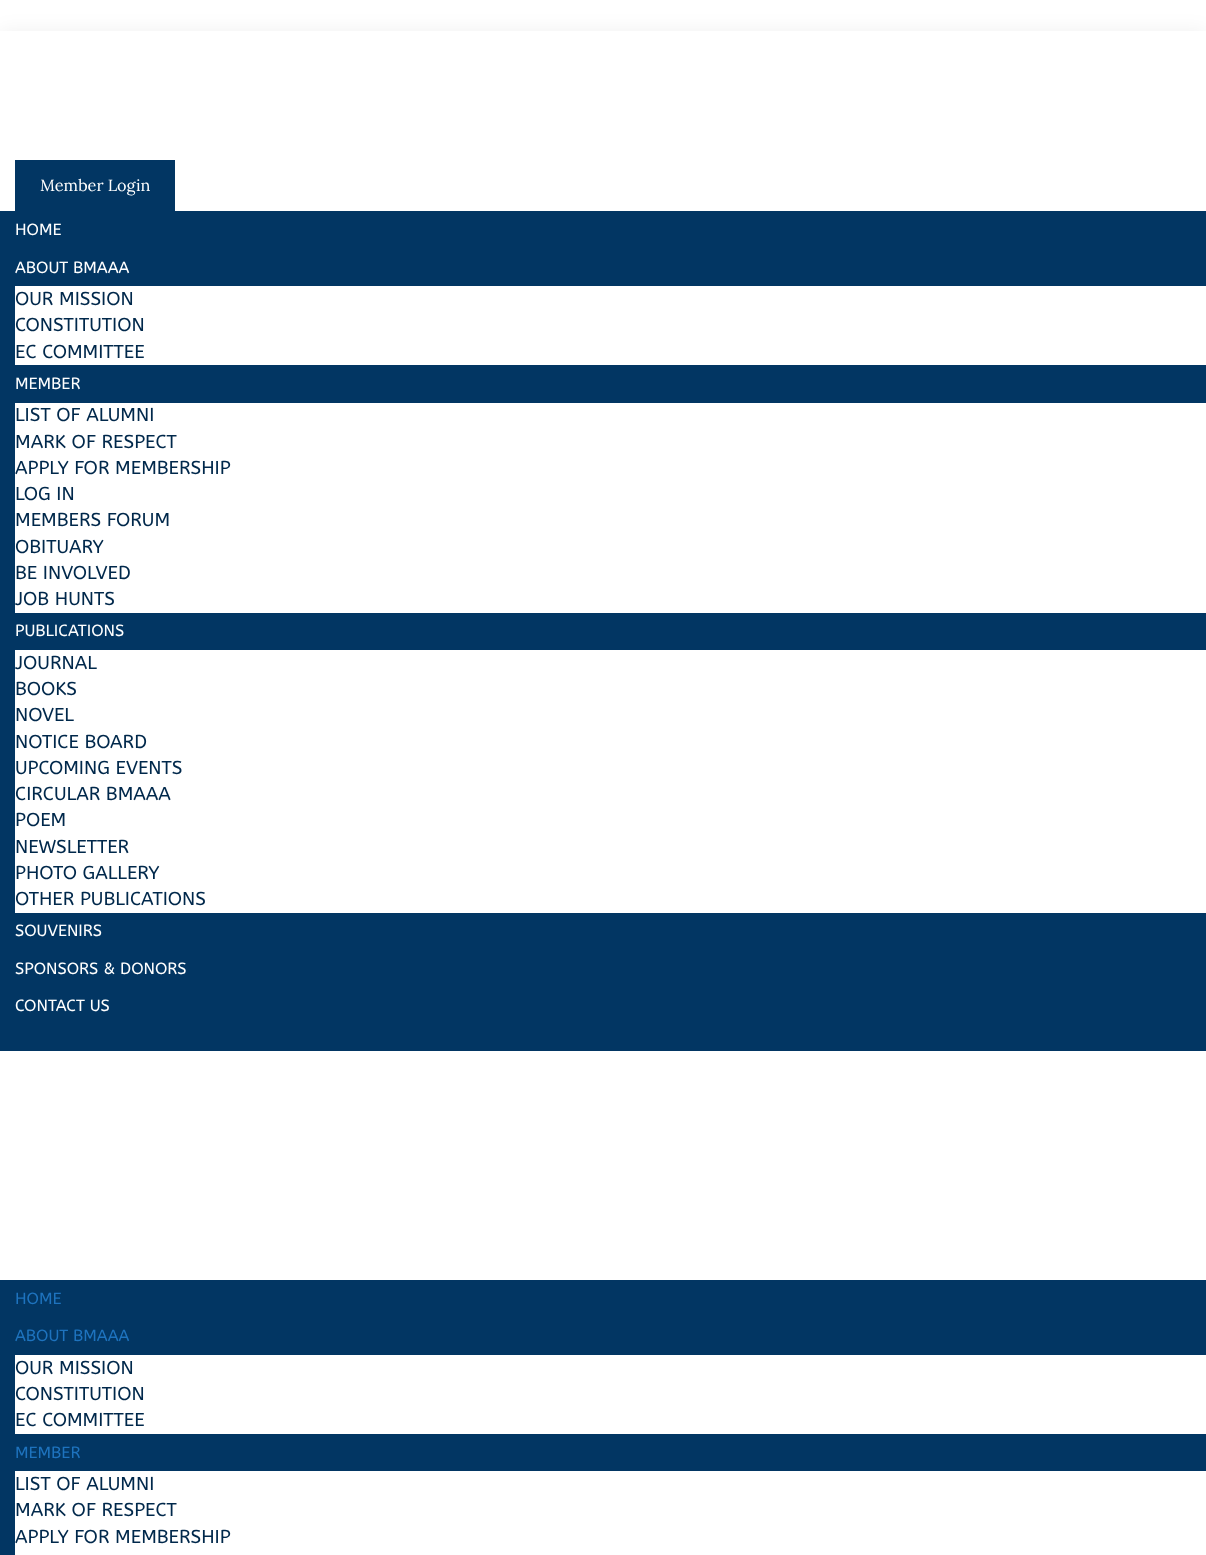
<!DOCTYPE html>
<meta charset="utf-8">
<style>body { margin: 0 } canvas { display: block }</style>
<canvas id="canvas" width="1206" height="1555"></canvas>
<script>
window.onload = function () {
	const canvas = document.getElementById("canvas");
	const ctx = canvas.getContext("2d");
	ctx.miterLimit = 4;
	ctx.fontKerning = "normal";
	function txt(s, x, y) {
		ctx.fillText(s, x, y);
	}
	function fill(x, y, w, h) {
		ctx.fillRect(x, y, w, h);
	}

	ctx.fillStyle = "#FFFFFF";
	fill(0, 0, 1206, 1555);
	ctx.fillStyle = "rgba(0, 0, 0, 0.06)";
	ctx.filter = "blur(9.5px)";
	ctx.beginPath();
	ctx.rect(0, 31, 1206, 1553);
	ctx.fill();
	ctx.filter = "none";
	ctx.fillStyle = "#FFFFFF";
	fill(0, 31, 1206, 1249);
	ctx.fillStyle = "#023663";
	fill(15, 160, 160, 51);
	fill(0, 211, 1206, 840);
	ctx.fillStyle = "#FFFFFF";
	fill(15, 286, 1191, 79);
	fill(15, 403, 1191, 210);
	fill(15, 650, 1191, 263);
	ctx.fillStyle = "#023663";
	fill(0, 1280, 1206, 275);
	ctx.fillStyle = "#FFFFFF";
	fill(15, 1355, 1191, 79);
	fill(15, 1471, 1191, 84);
	ctx.font = "16.25px Lora";
	txt("Member Login", 40, 191);
	ctx.font = "16.25px ABeeZee";
	txt("HOME", 15, 235);
	txt("ABOUT BMAAA", 15, 273);
	ctx.font = "18.75px ABeeZee";
	ctx.fillStyle = "#00284B";
	txt("OUR MISSION", 15, 305);
	txt("CONSTITUTION", 15, 331);
	txt("EC COMMITTEE", 15, 358);
	ctx.font = "16.25px ABeeZee";
	ctx.fillStyle = "#FFFFFF";
	txt("MEMBER", 15, 389);
	ctx.font = "18.75px ABeeZee";
	ctx.fillStyle = "#00284B";
	txt("LIST OF ALUMNI", 15, 421);
	txt("MARK OF RESPECT", 15, 448);
	txt("APPLY FOR MEMBERSHIP", 15, 474);
	txt("LOG IN", 15, 500);
	txt("MEMBERS FORUM", 15, 526);
	txt("OBITUARY", 15, 553);
	txt("BE INVOLVED", 15, 579);
	txt("JOB HUNTS", 15, 605);
	ctx.font = "16.25px ABeeZee";
	ctx.fillStyle = "#FFFFFF";
	txt("PUBLICATIONS", 15, 636);
	ctx.font = "18.75px ABeeZee";
	ctx.fillStyle = "#00284B";
	txt("JOURNAL", 15, 669);
	txt("BOOKS", 15, 695);
	txt("NOVEL", 15, 721);
	txt("NOTICE BOARD", 15, 748);
	txt("UPCOMING EVENTS", 15, 774);
	txt("CIRCULAR BMAAA", 15, 800);
	txt("POEM", 15, 826);
	txt("NEWSLETTER", 15, 853);
	txt("PHOTO GALLERY", 15, 879);
	txt("OTHER PUBLICATIONS", 15, 905);
	ctx.font = "16.25px ABeeZee";
	ctx.fillStyle = "#FFFFFF";
	txt("SOUVENIRS", 15, 936);
	txt("SPONSORS & DONORS", 15, 974);
	txt("CONTACT US", 15, 1011);
	ctx.fillStyle = "#1E73BE";
	txt("HOME", 15, 1304);
	txt("ABOUT BMAAA", 15, 1341);
	ctx.font = "18.75px ABeeZee";
	ctx.fillStyle = "#00284B";
	txt("OUR MISSION", 15, 1374);
	txt("CONSTITUTION", 15, 1400);
	txt("EC COMMITTEE", 15, 1426);
	ctx.font = "16.25px ABeeZee";
	ctx.fillStyle = "#1E73BE";
	txt("MEMBER", 15, 1458);
	ctx.font = "18.75px ABeeZee";
	ctx.fillStyle = "#00284B";
	txt("LIST OF ALUMNI", 15, 1490);
	txt("MARK OF RESPECT", 15, 1516);
	txt("APPLY FOR MEMBERSHIP", 15, 1543);
};
</script>
